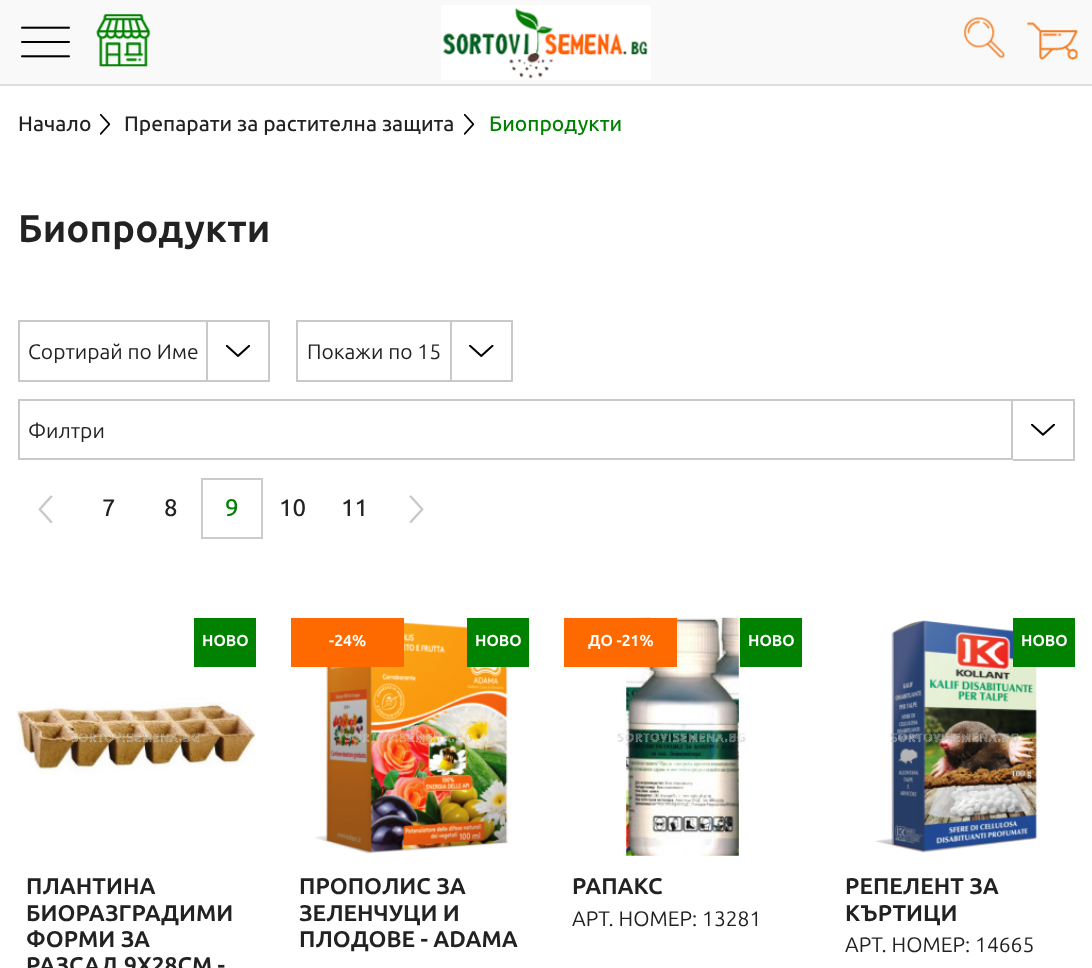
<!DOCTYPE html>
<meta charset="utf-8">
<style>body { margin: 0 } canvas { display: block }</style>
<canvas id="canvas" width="1092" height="968"></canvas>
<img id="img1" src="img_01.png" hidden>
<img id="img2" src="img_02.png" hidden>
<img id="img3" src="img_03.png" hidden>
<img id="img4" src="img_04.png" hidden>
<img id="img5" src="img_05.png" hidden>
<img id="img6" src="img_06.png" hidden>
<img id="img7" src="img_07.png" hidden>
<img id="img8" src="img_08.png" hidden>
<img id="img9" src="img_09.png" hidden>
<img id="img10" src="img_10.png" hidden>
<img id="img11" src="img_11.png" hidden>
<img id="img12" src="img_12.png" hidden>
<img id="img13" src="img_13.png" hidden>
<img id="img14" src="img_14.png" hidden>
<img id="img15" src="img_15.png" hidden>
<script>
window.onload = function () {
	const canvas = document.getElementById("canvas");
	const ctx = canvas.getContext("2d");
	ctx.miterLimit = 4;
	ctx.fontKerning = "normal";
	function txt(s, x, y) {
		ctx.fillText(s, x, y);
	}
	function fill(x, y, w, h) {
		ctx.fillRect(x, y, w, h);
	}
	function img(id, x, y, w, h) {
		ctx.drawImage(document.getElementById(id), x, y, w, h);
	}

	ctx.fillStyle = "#FFFFFF";
	fill(0, 0, 1092, 968);
	ctx.fillStyle = "#DDDDDD";
	fill(0, 84, 1092, 2);
	ctx.fillStyle = "#F9F9F9";
	fill(0, 0, 1092, 84);
	img("img1", 21, 26, 49, 32);
	img("img2", 96, 13, 55, 54);
	img("img3", 441, 5, 210, 75);
	img("img4", 964, 17, 41, 41);
	img("img5", 1027, 22, 51, 39);
	img("img6", 100, 114, 10, 21);
	img("img6", 464, 114, 10, 21);
	ctx.strokeStyle = "#C9C9C9";
	ctx.lineWidth = 2;
	ctx.strokeRect(19, 321, 188, 60);
	img("img7", 226, 345, 24, 12);
	ctx.fillStyle = "#C9C9C9";
	fill(208, 320, 62, 2);
	fill(268, 320, 2, 62);
	fill(208, 380, 62, 2);
	ctx.strokeRect(297, 321, 154, 60);
	img("img8", 469, 345, 25, 12);
	fill(452, 320, 61, 2);
	fill(511, 320, 2, 62);
	fill(452, 380, 61, 2);
	ctx.strokeRect(19, 400, 993, 59);
	img("img9", 1031, 424, 24, 12);
	fill(1013, 399, 62, 2);
	fill(1073, 399, 2, 61);
	fill(1013, 459, 62, 2);
	img("img10", 38, 495, 15, 28);
	ctx.strokeStyle = "#CBCBCB";
	ctx.strokeRect(202, 479, 60, 59);
	img("img11", 409, 495, 15, 28);
	ctx.fillStyle = "#008100";
	fill(194, 618, 62, 49);
	img("img12", 17, 697, 239, 78);
	img("img13", 314, 622, 195, 232);
	ctx.fillStyle = "#FF6A00";
	fill(291, 618, 113, 49);
	ctx.fillStyle = "#008100";
	fill(467, 618, 62, 49);
	img("img14", 617, 617, 129, 239);
	ctx.fillStyle = "#FF6A00";
	fill(564, 618, 113, 49);
	ctx.fillStyle = "#008100";
	fill(740, 618, 62, 49);
	img("img15", 875, 620, 163, 233);
	fill(1013, 618, 62, 49);
	ctx.font = "500 21px Ubuntu";
	ctx.fillStyle = "#222222";
	txt("Начало", 18, 131);
	txt("Препарати за растителна защита", 124, 131);
	ctx.fillStyle = "#008100";
	txt("Биопродукти", 489, 131);
	ctx.font = "bold 38.5px Ubuntu";
	ctx.fillStyle = "#222222";
	txt("Биопродукти", 18, 242);
	ctx.font = "21px Ubuntu";
	txt("Сортирай по Име", 28, 359);
	txt("Покажи по 15", 307, 359);
	txt("Филтри", 28, 438);
	ctx.font = "500 24px Ubuntu";
	txt("7", 102, 516);
	txt("8", 164, 516);
	ctx.fillStyle = "#008100";
	txt("9", 225, 516);
	ctx.fillStyle = "#222222";
	txt("10", 279, 516);
	txt("11", 341, 516);
	ctx.font = "bold 15.75px Ubuntu";
	ctx.fillStyle = "#FFFFFF";
	txt("НОВО", 202, 646);
	ctx.font = "bold 22.75px Ubuntu";
	ctx.fillStyle = "#222222";
	txt("ПЛАНТИНА", 26, 894);
	txt("БИОРАЗГРАДИМИ", 26, 921);
	txt("ФОРМИ ЗА", 26, 947);
	txt("РАЗСАД 9Х28СМ -", 26, 973);
	ctx.font = "bold 15.75px Ubuntu";
	ctx.fillStyle = "#FFFFFF";
	txt("-24%", 329, 646);
	txt("НОВО", 475, 646);
	ctx.font = "bold 22.75px Ubuntu";
	ctx.fillStyle = "#222222";
	txt("ПРОПОЛИС ЗА", 299, 894);
	txt("ЗЕЛЕНЧУЦИ И", 299, 921);
	txt("ПЛОДОВЕ - ADAMA", 299, 947);
	ctx.font = "bold 15.75px Ubuntu";
	ctx.fillStyle = "#FFFFFF";
	txt("ДО -21%", 588, 646);
	txt("НОВО", 748, 646);
	ctx.font = "bold 22.75px Ubuntu";
	ctx.fillStyle = "#222222";
	txt("РАПАКС", 572, 894);
	ctx.font = "21px Ubuntu";
	txt("АРТ. НОМЕР: 13281", 572, 926);
	ctx.font = "bold 15.75px Ubuntu";
	ctx.fillStyle = "#FFFFFF";
	txt("НОВО", 1021, 646);
	ctx.font = "bold 22.75px Ubuntu";
	ctx.fillStyle = "#222222";
	txt("РЕПЕЛЕНТ ЗА", 845, 894);
	txt("КЪРТИЦИ", 845, 921);
	ctx.font = "21px Ubuntu";
	txt("АРТ. НОМЕР: 14665", 845, 952);
};
</script>
